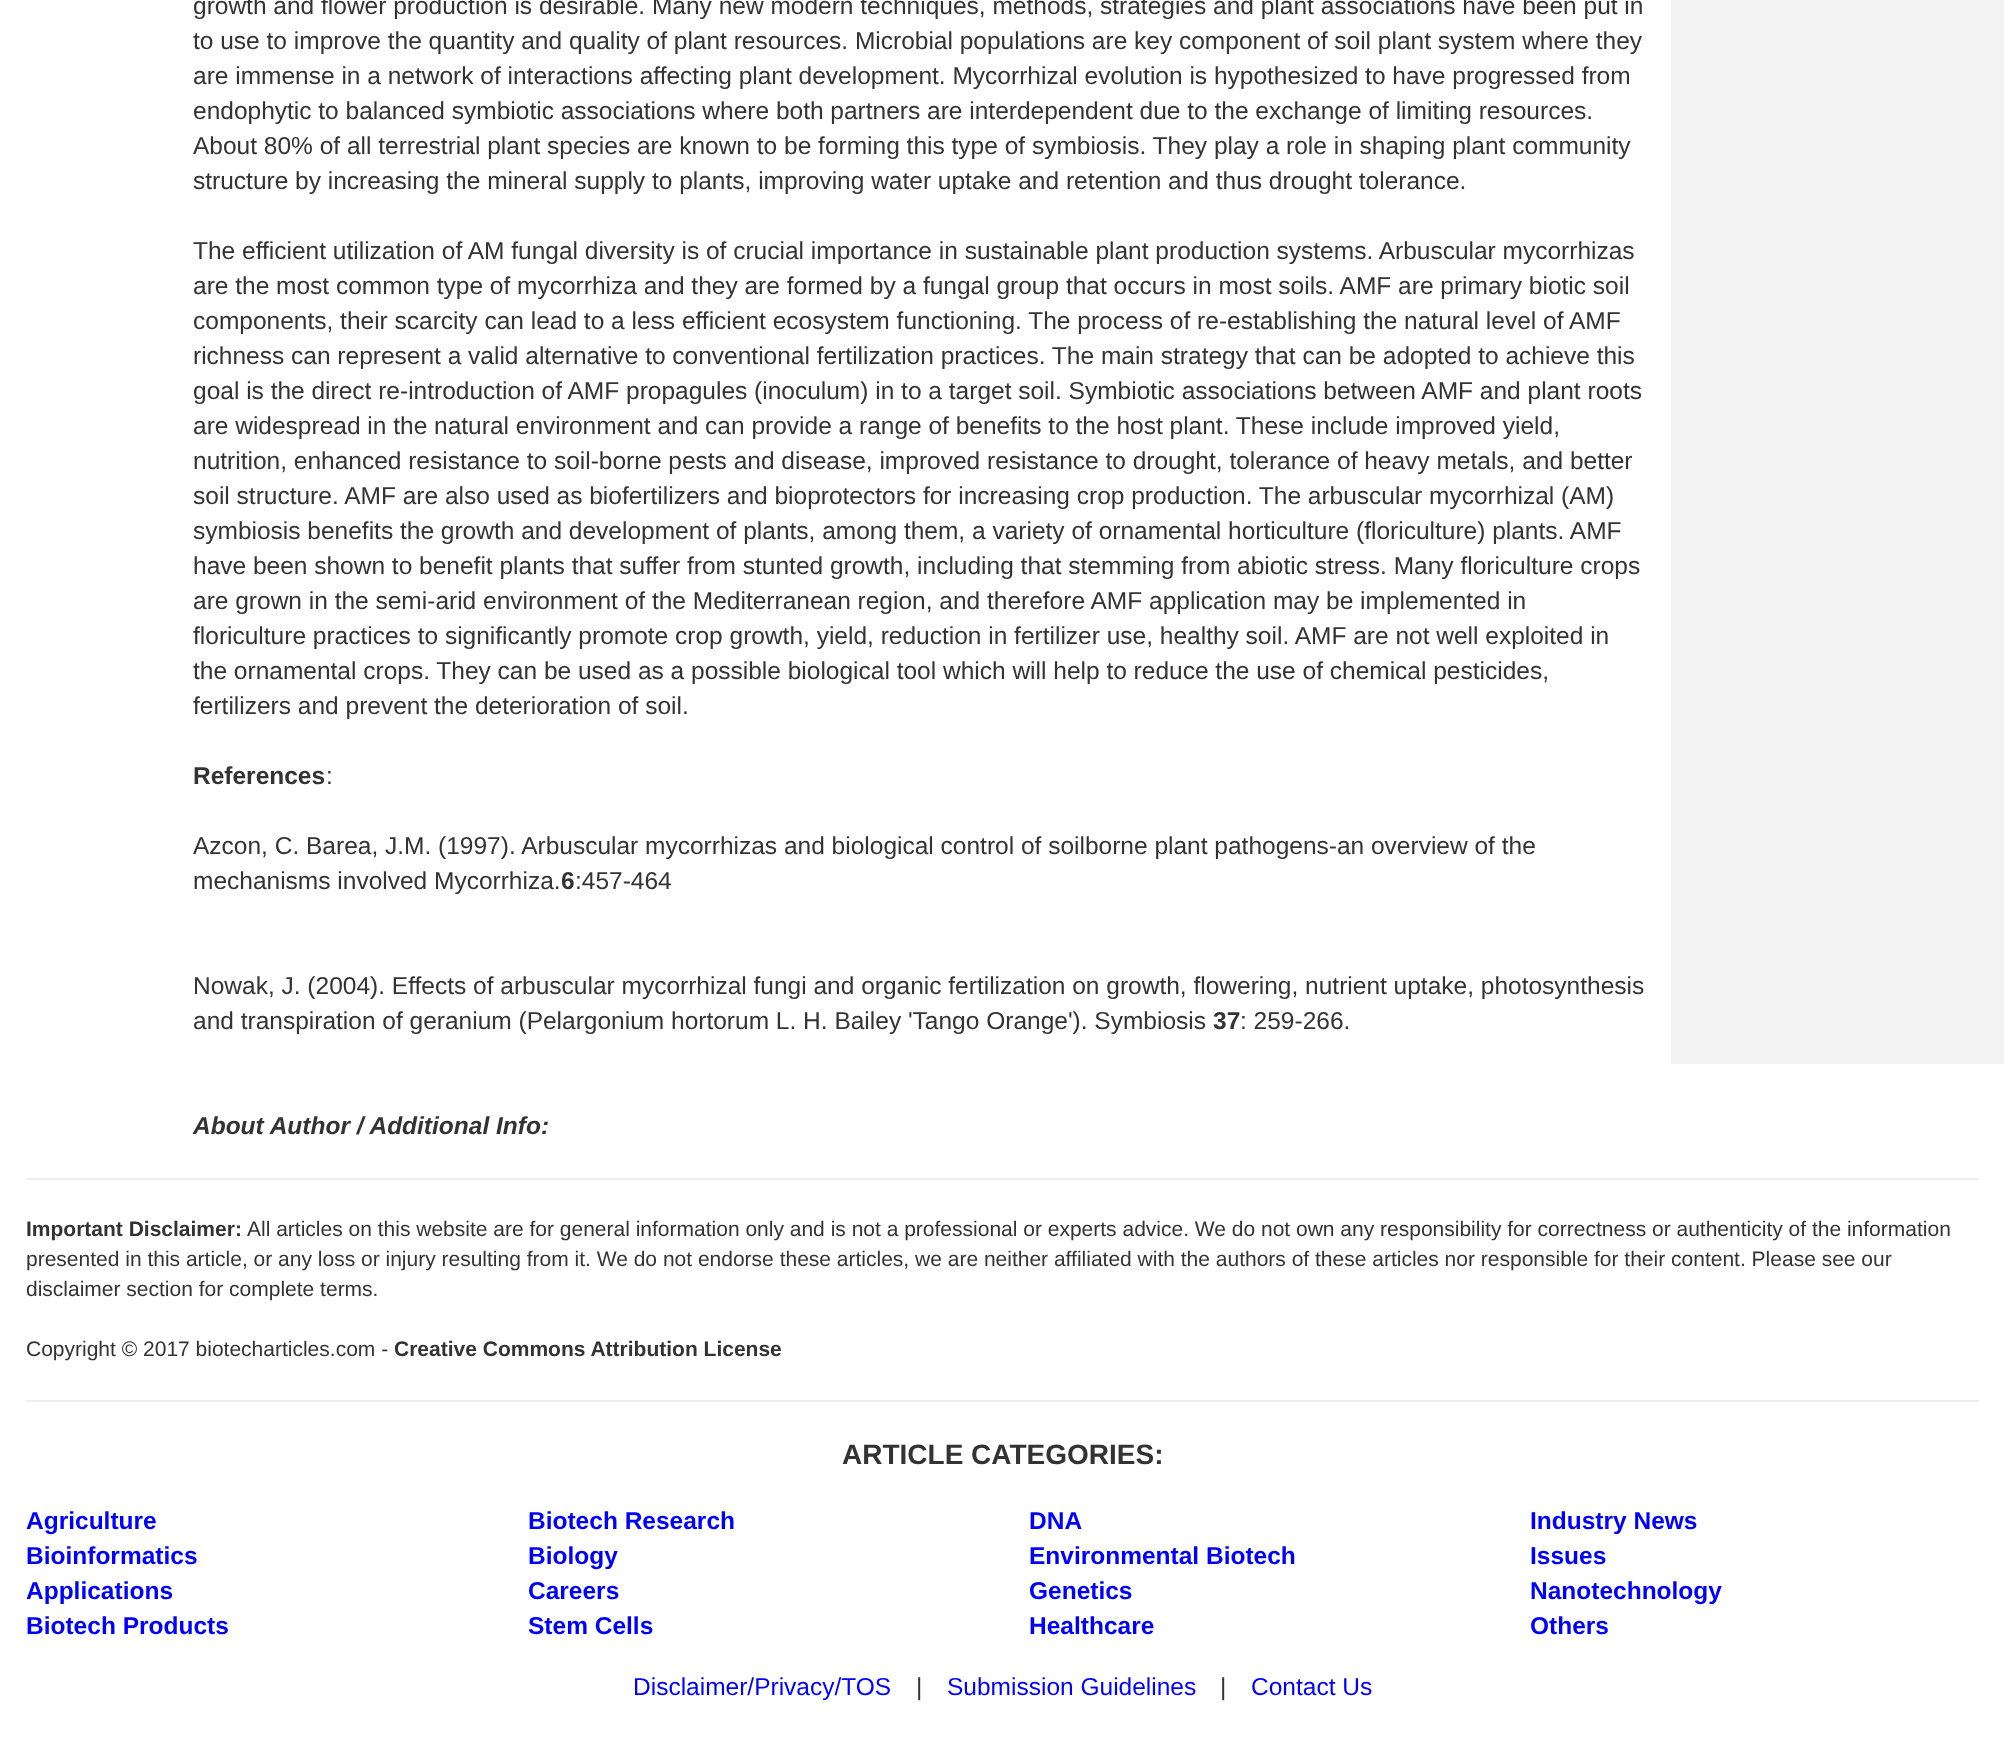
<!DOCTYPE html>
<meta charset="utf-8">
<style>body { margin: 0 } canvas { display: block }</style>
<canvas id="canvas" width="2004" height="1743"></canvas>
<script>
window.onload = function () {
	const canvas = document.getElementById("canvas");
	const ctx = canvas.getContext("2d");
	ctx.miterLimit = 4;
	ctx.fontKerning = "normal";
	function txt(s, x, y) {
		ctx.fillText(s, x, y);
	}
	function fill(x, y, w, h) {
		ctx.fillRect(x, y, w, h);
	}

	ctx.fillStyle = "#FFFFFF";
	fill(0, 0, 2004, 1743);
	ctx.fillStyle = "#F3F3F3";
	fill(1671, 0, 333, 1064);
	ctx.fillStyle = "#EEEEEE";
	fill(26, 1178, 1953, 2);
	fill(26, 1400, 1953, 2);
	ctx.font = "24.5px Liberation Sans";
	ctx.fillStyle = "#333333";
	txt("growth and flower production is desirable. Many new modern techniques, methods, strategies and plant associations have been put in", 193, 14);
	txt("to use to improve the quantity and quality of plant resources. Microbial populations are key component of soil plant system where they", 193, 49);
	txt("are immense in a network of interactions affecting plant development. Mycorrhizal evolution is hypothesized to have progressed from", 193, 84);
	txt("endophytic to balanced symbiotic associations where both partners are interdependent due to the exchange of limiting resources.", 193, 119);
	txt("About 80% of all terrestrial plant species are known to be forming this type of symbiosis. They play a role in shaping plant community", 193, 154);
	txt("structure by increasing the mineral supply to plants, improving water uptake and retention and thus drought tolerance.", 193, 189);
	txt("The efficient utilization of AM fungal diversity is of crucial importance in sustainable plant production systems. Arbuscular mycorrhizas", 193, 259);
	txt("are the most common type of mycorrhiza and they are formed by a fungal group that occurs in most soils. AMF are primary biotic soil", 193, 294);
	txt("components, their scarcity can lead to a less efficient ecosystem functioning. The process of re-establishing the natural level of AMF", 193, 329);
	txt("richness can represent a valid alternative to conventional fertilization practices. The main strategy that can be adopted to achieve this", 193, 364);
	txt("goal is the direct re-introduction of AMF propagules (inoculum) in to a target soil. Symbiotic associations between AMF and plant roots", 193, 399);
	txt("are widespread in the natural environment and can provide a range of benefits to the host plant. These include improved yield,", 193, 434);
	txt("nutrition, enhanced resistance to soil-borne pests and disease, improved resistance to drought, tolerance of heavy metals, and better", 193, 469);
	txt("soil structure. AMF are also used as biofertilizers and bioprotectors for increasing crop production. The arbuscular mycorrhizal (AM)", 193, 504);
	txt("symbiosis benefits the growth and development of plants, among them, a variety of ornamental horticulture (floriculture) plants. AMF", 193, 539);
	txt("have been shown to benefit plants that suffer from stunted growth, including that stemming from abiotic stress. Many floriculture crops", 193, 574);
	txt("are grown in the semi-arid environment of the Mediterranean region, and therefore AMF application may be implemented in", 193, 609);
	txt("floriculture practices to significantly promote crop growth, yield, reduction in fertilizer use, healthy soil. AMF are not well exploited in", 193, 644);
	txt("the ornamental crops. They can be used as a possible biological tool which will help to reduce the use of chemical pesticides,", 193, 679);
	txt("fertilizers and prevent the deterioration of soil.", 193, 714);
	ctx.font = "bold 24.5px Liberation Sans";
	txt("References", 193, 784);
	ctx.font = "24.5px Liberation Sans";
	txt(":", 326, 784);
	txt("Azcon, C. Barea, J.M. (1997). Arbuscular mycorrhizas and biological control of soilborne plant pathogens-an overview of the", 193, 854);
	txt("mechanisms involved Mycorrhiza.", 193, 889);
	ctx.font = "bold 24.5px Liberation Sans";
	txt("6", 561, 889);
	ctx.font = "24.5px Liberation Sans";
	txt(":457-464", 575, 889);
	txt("Nowak, J. (2004). Effects of arbuscular mycorrhizal fungi and organic fertilization on growth, flowering, nutrient uptake, photosynthesis", 193, 994);
	txt("and transpiration of geranium (Pelargonium hortorum L. H. Bailey 'Tango Orange'). Symbiosis", 193, 1029);
	ctx.font = "bold 24.5px Liberation Sans";
	txt("37", 1213, 1029);
	ctx.font = "24.5px Liberation Sans";
	txt(": 259-266.", 1240, 1029);
	ctx.font = "italic bold 24.5px Liberation Sans";
	txt("About Author / Additional Info:", 193, 1134);
	ctx.font = "bold 21px Liberation Sans";
	txt("Important Disclaimer:", 26, 1236);
	ctx.font = "21px Liberation Sans";
	txt("All articles on this website are for general information only and is not a professional or experts advice. We do not own any responsibility for correctness or authenticity of the information", 247, 1236);
	txt("presented in this article, or any loss or injury resulting from it. We do not endorse these articles, we are neither affiliated with the authors of these articles nor responsible for their content. Please see our", 26, 1266);
	txt("disclaimer section for complete terms.", 26, 1296);
	txt("Copyright © 2017 biotecharticles.com -", 26, 1356);
	ctx.font = "bold 21px Liberation Sans";
	txt("Creative Commons Attribution License", 394, 1356);
	ctx.font = "bold 28px Liberation Sans";
	txt("ARTICLE CATEGORIES:", 842, 1464);
	ctx.font = "bold 24.5px Liberation Sans";
	ctx.fillStyle = "#0000FF";
	txt("Agriculture", 26, 1529);
	txt("Bioinformatics", 26, 1564);
	txt("Applications", 26, 1599);
	txt("Biotech Products", 26, 1634);
	txt("Biotech Research", 528, 1529);
	txt("Biology", 528, 1564);
	txt("Careers", 528, 1599);
	txt("Stem Cells", 528, 1634);
	txt("DNA", 1029, 1529);
	txt("Environmental Biotech", 1029, 1564);
	txt("Genetics", 1029, 1599);
	txt("Healthcare", 1029, 1634);
	txt("Industry News", 1530, 1529);
	txt("Issues", 1530, 1564);
	txt("Nanotechnology", 1530, 1599);
	txt("Others", 1530, 1634);
	ctx.font = "24.5px Liberation Sans";
	txt("Disclaimer/Privacy/TOS", 633, 1695);
	ctx.fillStyle = "#333333";
	txt("|", 916, 1695);
	ctx.fillStyle = "#0000FF";
	txt("Submission Guidelines", 947, 1695);
	ctx.fillStyle = "#333333";
	txt("|", 1220, 1695);
	ctx.fillStyle = "#0000FF";
	txt("Contact Us", 1251, 1695);
};
</script>
